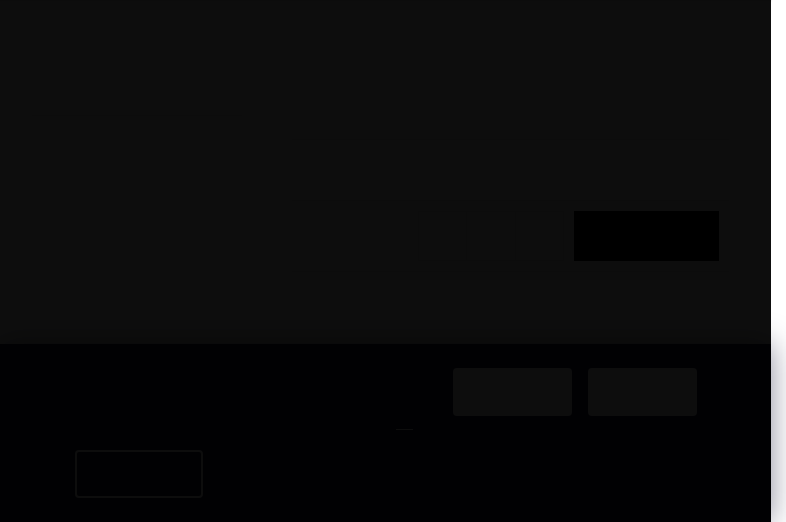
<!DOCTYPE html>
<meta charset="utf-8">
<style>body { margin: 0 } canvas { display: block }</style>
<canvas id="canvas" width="786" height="522"></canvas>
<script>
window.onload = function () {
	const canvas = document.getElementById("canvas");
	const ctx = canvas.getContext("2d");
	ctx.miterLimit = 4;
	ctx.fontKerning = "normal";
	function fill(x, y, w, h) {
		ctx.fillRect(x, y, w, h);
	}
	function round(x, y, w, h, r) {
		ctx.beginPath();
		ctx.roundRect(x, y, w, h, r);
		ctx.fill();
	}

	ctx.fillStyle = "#FFFFFF";
	fill(0, 0, 786, 522);
	ctx.fillStyle = "rgba(0, 0, 0, 0.16)";
	ctx.filter = "blur(1px)";
	ctx.beginPath();
	ctx.rect(0, -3, 771, 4);
	ctx.fill();
	ctx.filter = "none";
	ctx.fillStyle = "#E6E6E6";
	fill(32, 115, 210, 1);
	ctx.fillStyle = "#E7E7E7";
	fill(292, 139, 437, 1);
	fill(292, 200, 437, 1);
	fill(292, 271, 437, 1);
	ctx.strokeStyle = "#E6E6E6";
	ctx.strokeRect(418.5, 211.5, 145, 49);
	ctx.fillStyle = "#E6E6E6";
	fill(466, 212, 1, 48);
	fill(515, 212, 1, 48);
	ctx.fillStyle = "#000000";
	fill(574, 211, 145, 50);
	ctx.fillStyle = "rgba(27, 25, 57, 0.5)";
	ctx.filter = "blur(15px)";
	ctx.beginPath();
	ctx.rect(0, 344, 771, 178);
	ctx.fill();
	ctx.filter = "none";
	ctx.fillStyle = "#1A1937";
	fill(0, 344, 771, 178);
	ctx.fillStyle = "#F8FAFB";
	round(453, 368, 119, 48, 4);
	round(588, 368, 109, 48, 4);
	fill(396, 429, 17, 1);
	ctx.beginPath();
	ctx.roundRect(76, 451, 126, 46, 3);
	ctx.strokeStyle = "#F8FAFB";
	ctx.lineWidth = 2;
	ctx.stroke();
	ctx.fillStyle = "rgba(0, 0, 0, 0.95)";
	fill(0, 0, 771, 522);
};
</script>
